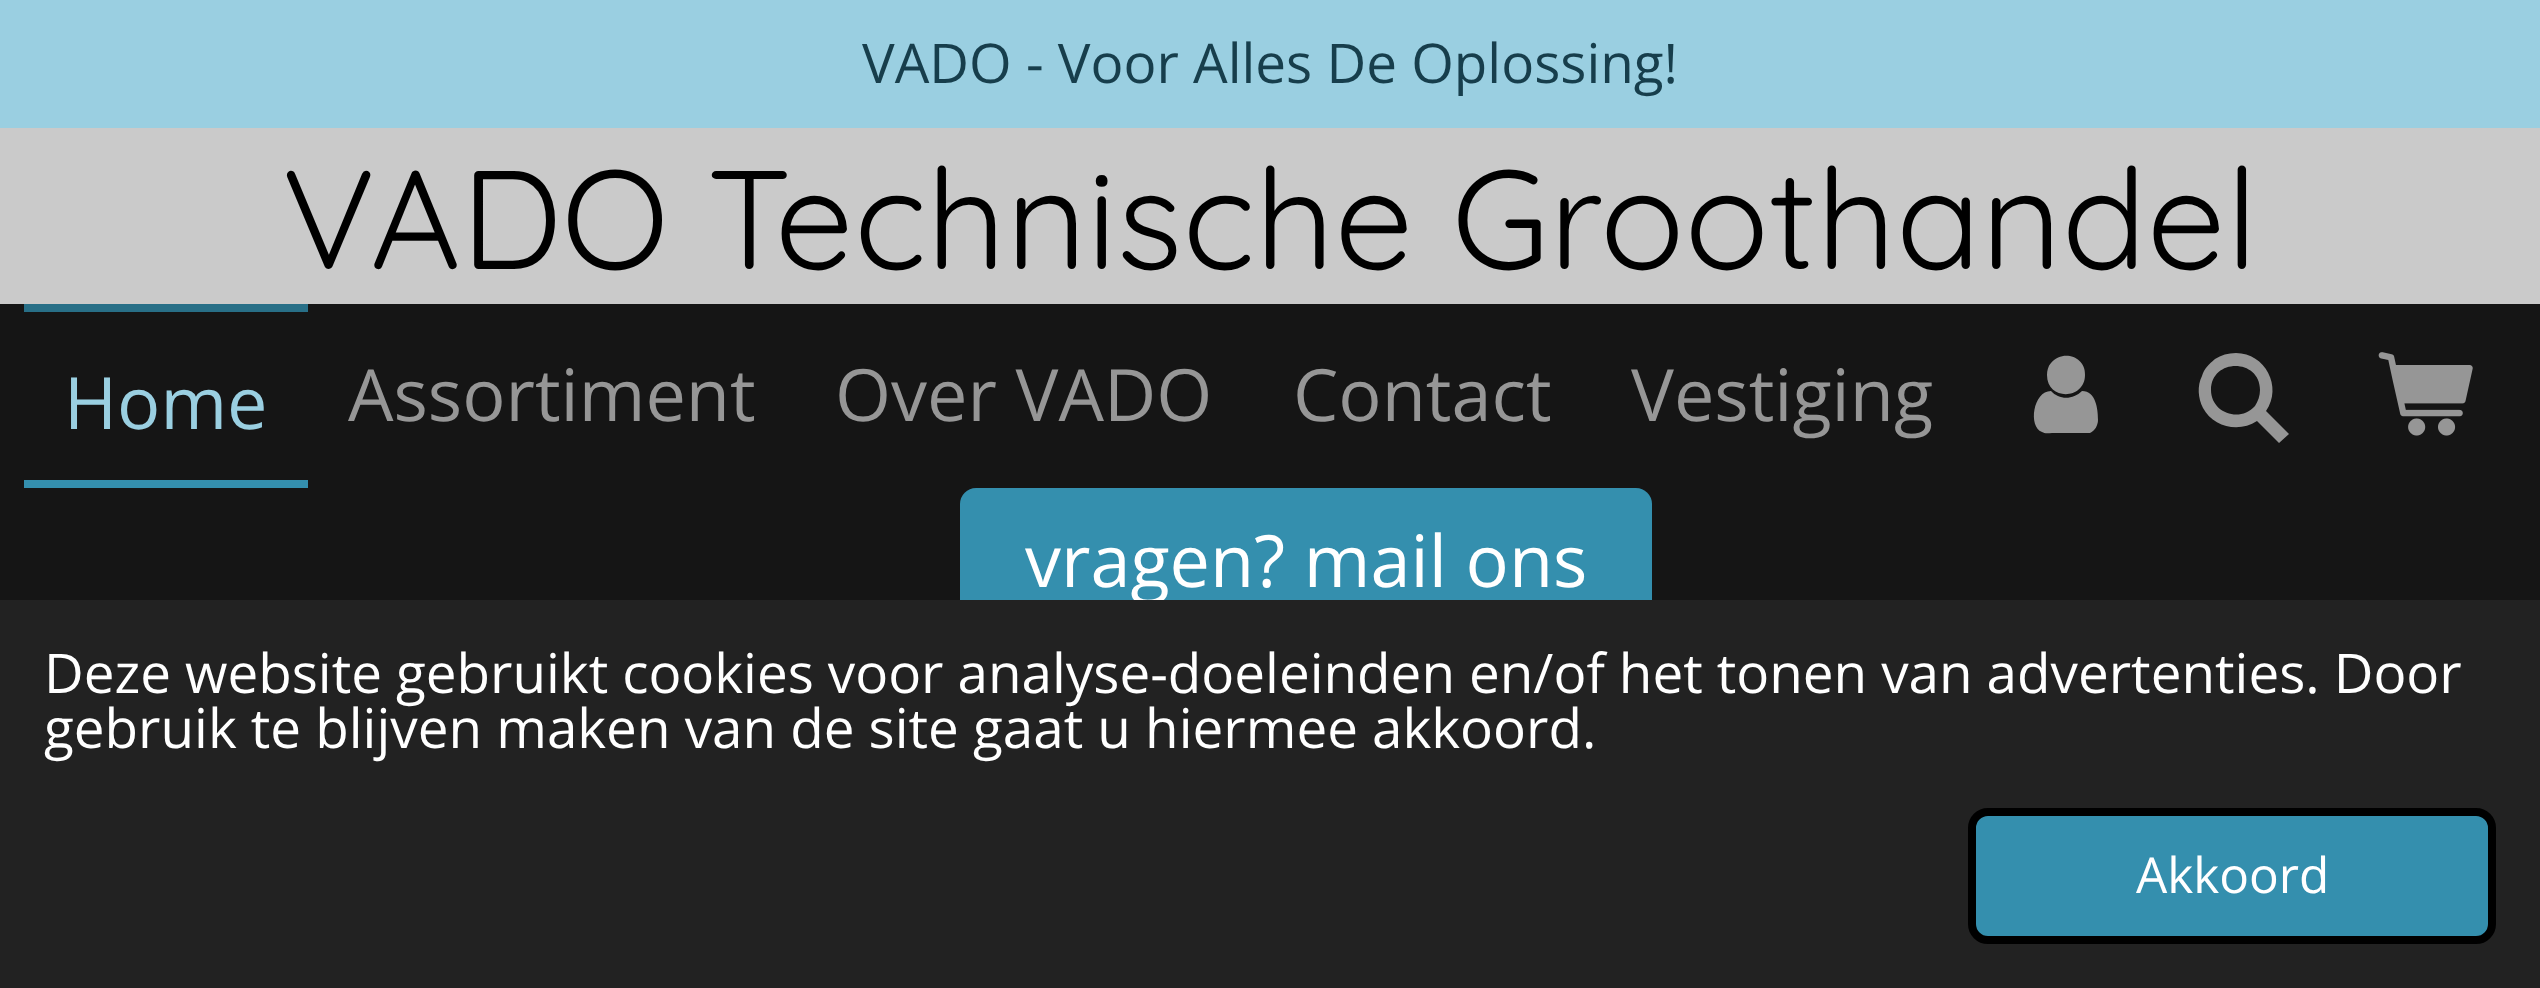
<!DOCTYPE html>
<meta charset="utf-8">
<style>body { margin: 0 } canvas { display: block }</style>
<canvas id="canvas" width="2540" height="988"></canvas>
<img id="img1" src="img_01.png" hidden>
<script>
window.onload = function () {
	const canvas = document.getElementById("canvas");
	const ctx = canvas.getContext("2d");
	ctx.miterLimit = 4;
	ctx.fontKerning = "normal";
	function txt(s, x, y) {
		ctx.fillText(s, x, y);
	}
	function fill(x, y, w, h) {
		ctx.fillRect(x, y, w, h);
	}
	function round(x, y, w, h, r) {
		ctx.beginPath();
		ctx.roundRect(x, y, w, h, r);
		ctx.fill();
	}
	function img(id, x, y, w, h) {
		ctx.drawImage(document.getElementById(id), x, y, w, h);
	}

	ctx.fillStyle = "#9ACFE1";
	fill(0, 0, 2540, 988);
	ctx.fillStyle = "#CACACA";
	fill(0, 128, 2540, 176);
	ctx.fillStyle = "#151515";
	fill(0, 304, 2540, 296);
	ctx.fillStyle = "#286F87";
	fill(24, 304, 284, 8);
	ctx.fillStyle = "#348FAE";
	fill(24, 480, 284, 8);
	ctx.fillStyle = "#969696";
	ctx.beginPath();
	ctx.moveTo(2098, 420);
	ctx.bezierCurveTo(2098, 425, 2095, 431, 2090, 433);
	ctx.lineTo(2052, 433);
	ctx.bezierCurveTo(2049, 433, 2045, 434, 2042, 432);
	ctx.bezierCurveTo(2028, 427, 2033, 391, 2051, 391);
	ctx.bezierCurveTo(2059, 400, 2073, 400, 2082, 391);
	ctx.bezierCurveTo(2096, 391, 2098, 409, 2098, 420);
	ctx.closePath();
	ctx.moveTo(2085, 375);
	ctx.bezierCurveTo(2085, 400, 2047, 401, 2047, 375);
	ctx.bezierCurveTo(2047, 371, 2048, 366, 2051, 363);
	ctx.bezierCurveTo(2063, 349, 2086, 357, 2085, 375);
	ctx.closePath();
	ctx.fill();
	ctx.beginPath();
	ctx.moveTo(2266, 411);
	ctx.lineTo(2289, 434);
	ctx.lineTo(2279, 443);
	ctx.lineTo(2257, 421);
	ctx.bezierCurveTo(2239, 433, 2213, 427, 2203, 408);
	ctx.bezierCurveTo(2198, 398, 2197, 386, 2202, 376);
	ctx.bezierCurveTo(2204, 369, 2209, 364, 2215, 359);
	ctx.bezierCurveTo(2221, 355, 2228, 353, 2236, 353);
	ctx.bezierCurveTo(2265, 353, 2283, 387, 2266, 411);
	ctx.closePath();
	ctx.moveTo(2260, 390);
	ctx.bezierCurveTo(2260, 358, 2211, 358, 2211, 390);
	ctx.bezierCurveTo(2211, 413, 2240, 423, 2255, 406);
	ctx.bezierCurveTo(2258, 401, 2260, 396, 2260, 390);
	ctx.closePath();
	ctx.fill();
	img("img1", 2378, 352, 95, 84);
	ctx.fillStyle = "#348FAE";
	round(960, 488, 692, 144, 16);
	ctx.font = "54.8px Open Sans";
	ctx.fillStyle = "#173E4C";
	txt("VADO - Voor Alles De Oplossing!", 862, 83);
	ctx.font = "140px Quicksand";
	ctx.fillStyle = "#000000";
	txt("VADO Technische Groothandel", 282, 269);
	ctx.font = "72px Open Sans";
	ctx.fillStyle = "#9ACFE1";
	txt("Home", 64, 429);
	ctx.fillStyle = "#969696";
	txt("Assortiment", 348, 421);
	txt("Over VADO", 835, 421);
	txt("Contact", 1293, 421);
	txt("Vestiging", 1631, 421);
	ctx.fillStyle = "#FFFFFF";
	txt("vragen? mail ons", 1025, 587);
	ctx.fillStyle = "#222222";
	fill(0, 600, 2540, 388);
	ctx.wordSpacing = "-0.25px";
	ctx.font = "54.8px Open Sans";
	ctx.fillStyle = "#FFFFFF";
	txt("Deze website gebruikt cookies voor analyse-doeleinden en/of het tonen van advertenties. Door", 44, 693);
	ctx.wordSpacing = "-0.1px";
	txt("gebruik te blijven maken van de site gaat u hiermee akkoord.", 44, 748);
	ctx.fillStyle = "#348FAE";
	ctx.beginPath();
	ctx.roundRect(1972, 812, 520, 128, 16);
	ctx.fill();
	ctx.strokeStyle = "#000000";
	ctx.lineWidth = 8;
	ctx.stroke();
	ctx.wordSpacing = "0px";
	ctx.font = "49.5px Open Sans";
	ctx.fillStyle = "#FFFFFF";
	txt("Akkoord", 2136, 893);
};
</script>
